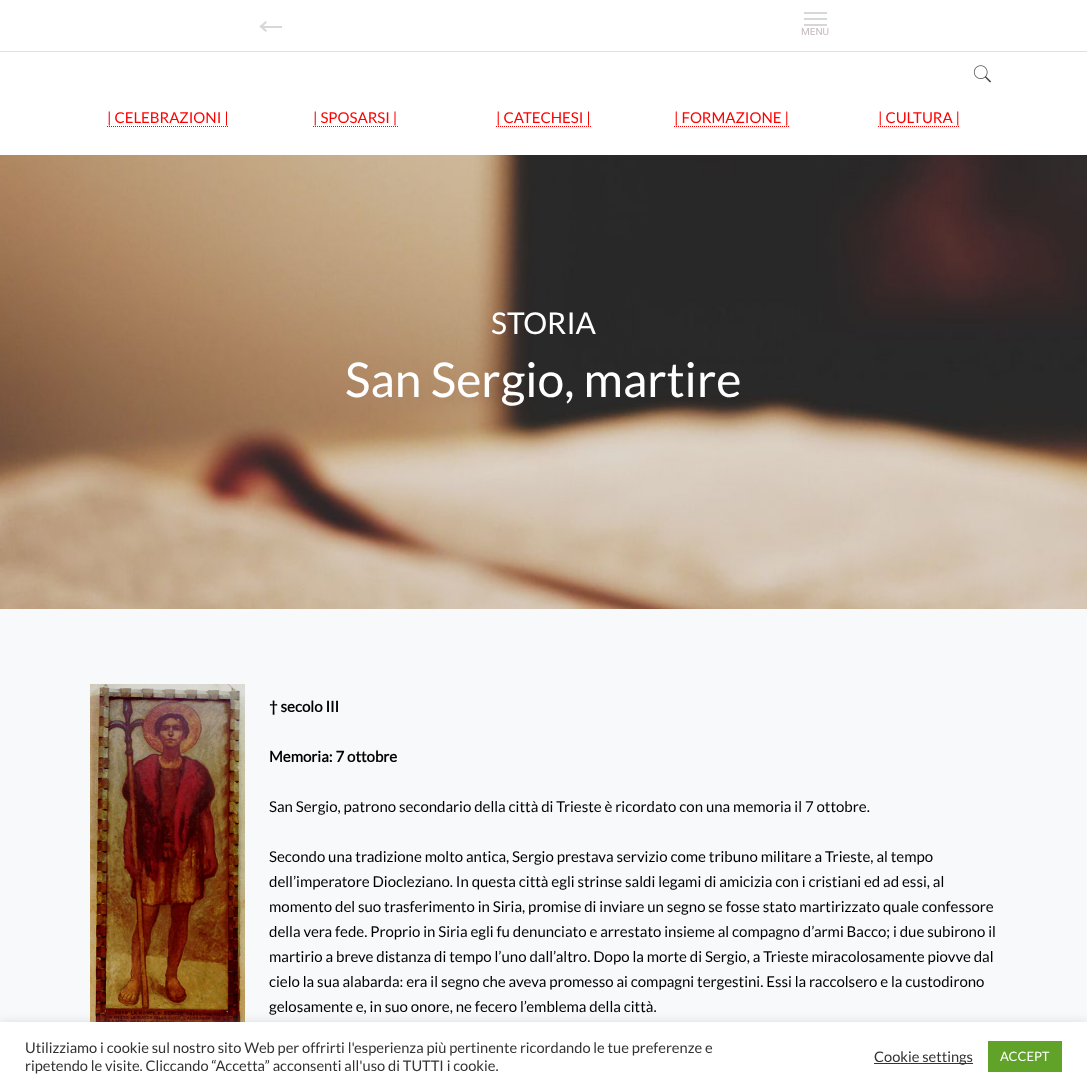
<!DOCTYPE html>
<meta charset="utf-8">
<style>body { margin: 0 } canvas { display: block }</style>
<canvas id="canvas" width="1087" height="1091"></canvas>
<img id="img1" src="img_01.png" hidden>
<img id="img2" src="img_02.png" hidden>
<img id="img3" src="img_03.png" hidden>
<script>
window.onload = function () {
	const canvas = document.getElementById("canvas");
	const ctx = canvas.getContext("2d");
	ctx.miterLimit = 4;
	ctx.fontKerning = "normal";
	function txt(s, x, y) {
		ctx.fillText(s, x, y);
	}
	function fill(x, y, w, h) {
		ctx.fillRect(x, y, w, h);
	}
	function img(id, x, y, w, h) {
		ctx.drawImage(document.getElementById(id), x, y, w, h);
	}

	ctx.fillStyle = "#F7F9FA";
	fill(0, 0, 1087, 1091);
	ctx.fillStyle = "#FFFFFF";
	fill(0, 51, 1087, 104);
	ctx.fillStyle = "rgba(0, 0, 0, 0.12)";
	ctx.filter = "blur(0.5px)";
	ctx.beginPath();
	ctx.rect(-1, -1, 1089, 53);
	ctx.fill();
	ctx.filter = "none";
	ctx.fillStyle = "#FFFFFF";
	fill(0, 0, 1087, 51);
	ctx.fillStyle = "#D7D7D7";
	fill(261, 26, 21, 2);
	ctx.beginPath();
	ctx.moveTo(259.5, 26.5);
	ctx.lineTo(265.5, 21);
	ctx.lineTo(267, 22.5);
	ctx.lineTo(261, 28);
	ctx.closePath();
	ctx.fill();
	ctx.beginPath();
	ctx.moveTo(261, 25);
	ctx.lineTo(267, 30.5);
	ctx.lineTo(265.5, 32);
	ctx.lineTo(259.5, 26.5);
	ctx.closePath();
	ctx.fill();
	fill(804, 18, 23, 2);
	fill(804, 12, 23, 2);
	fill(804, 24, 23, 2);
	img("img1", 973, 65, 19, 18);
	ctx.beginPath();
	ctx.moveTo(107, 126.5);
	ctx.lineTo(228, 126.5);
	ctx.strokeStyle = "#FF0000";
	ctx.setLineDash([1, 1]);
	ctx.stroke();
	ctx.beginPath();
	ctx.moveTo(313, 126.5);
	ctx.lineTo(398, 126.5);
	ctx.stroke();
	ctx.beginPath();
	ctx.moveTo(496, 126.5);
	ctx.lineTo(591, 126.5);
	ctx.stroke();
	ctx.beginPath();
	ctx.moveTo(674, 126.5);
	ctx.lineTo(789, 126.5);
	ctx.stroke();
	ctx.beginPath();
	ctx.moveTo(878, 126.5);
	ctx.lineTo(960, 126.5);
	ctx.stroke();
	img("img2", 0, 155, 1087, 454);
	img("img3", 90, 684, 155, 338);
	ctx.fillStyle = "rgba(172, 171, 171, 0.3)";
	ctx.filter = "blur(5px)";
	ctx.beginPath();
	ctx.rect(0, 1021, 1087, 69);
	ctx.fill();
	ctx.filter = "none";
	ctx.fillStyle = "#FFFFFF";
	fill(0, 1022, 1087, 69);
	ctx.fillStyle = "#333333";
	fill(874, 1063, 99, 1);
	ctx.fillStyle = "#61A229";
	fill(988, 1041, 74, 31);
	ctx.font = "10px Roboto";
	ctx.fillStyle = "#C4BBBB";
	txt("MENU", 801, 35);
	ctx.font = "15px Lato";
	ctx.fillStyle = "#FF0000";
	txt("| CELEBRAZIONI |", 107, 123);
	txt("| SPOSARSI |", 313, 123);
	txt("| CATECHESI |", 496, 123);
	txt("| FORMAZIONE |", 674, 123);
	txt("| CULTURA |", 878, 123);
	ctx.font = "30px Lato";
	ctx.fillStyle = "#FFFFFF";
	txt("STORIA", 491, 334);
	ctx.font = "48px Lato";
	txt("San Sergio, martire", 345, 397);
	ctx.font = "bold 15px Lato";
	ctx.fillStyle = "#000000";
	txt("† secolo III", 269, 712);
	txt("Memoria: 7 ottobre", 269, 762);
	ctx.font = "15px Lato";
	txt("San Sergio, patrono secondario della città di Trieste è ricordato con una memoria il 7 ottobre.", 269, 812);
	txt("Secondo una tradizione molto antica, Sergio prestava servizio come tribuno militare a Trieste, al tempo", 269, 862);
	txt("dell’imperatore Diocleziano. In questa città egli strinse saldi legami di amicizia con i cristiani ed ad essi, al", 269, 887);
	txt("momento del suo trasferimento in Siria, promise di inviare un segno se fosse stato martirizzato quale confessore", 269, 912);
	txt("della vera fede. Proprio in Siria egli fu denunciato e arrestato insieme al compagno d’armi Bacco; i due subirono il", 269, 937);
	txt("martirio a breve distanza di tempo l’uno dall’altro. Dopo la morte di Sergio, a Trieste miracolosamente piovve dal", 269, 962);
	txt("cielo la sua alabarda: era il segno che aveva promesso ai compagni tergestini. Essi la raccolsero e la custodirono", 269, 987);
	txt("gelosamente e, in suo onore, ne fecero l’emblema della città.", 269, 1012);
	ctx.font = "14.65px Lato";
	ctx.fillStyle = "#333333";
	txt("Utilizziamo i cookie sul nostro sito Web per offrirti l'esperienza più pertinente ricordando le tue preferenze e", 25, 1053);
	txt("ripetendo le visite. Cliccando “Accetta” acconsenti all'uso di TUTTI i cookie.", 25, 1071);
	txt("Cookie settings", 874, 1062);
	ctx.font = "13px Lato";
	ctx.fillStyle = "#FFFFFF";
	txt("ACCEPT", 1000, 1061);
};
</script>
